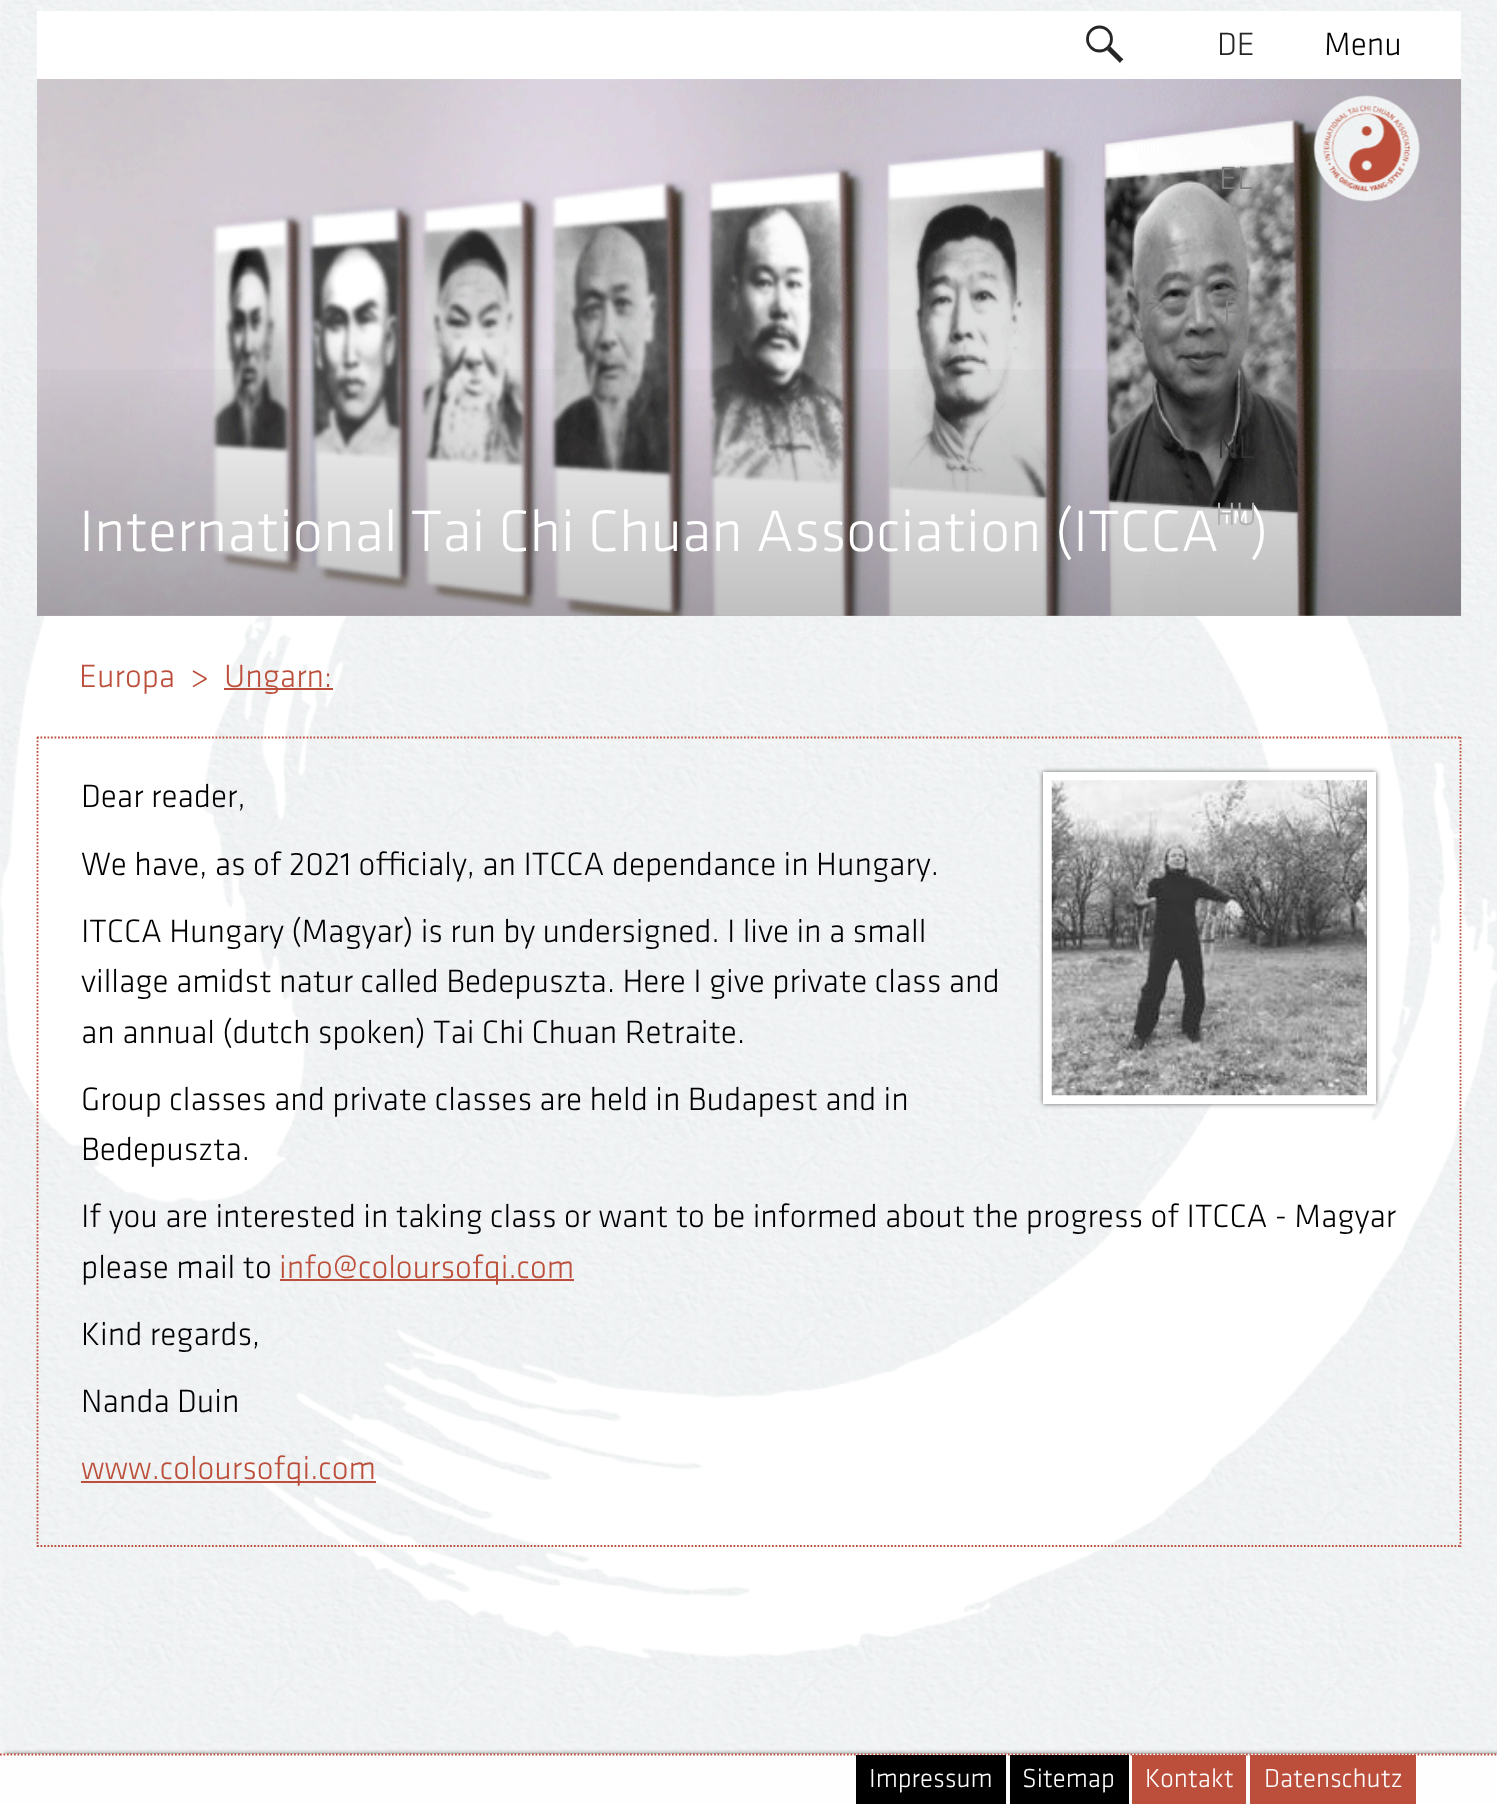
<!DOCTYPE html>
<meta charset="utf-8">
<style>body { margin: 0 } canvas { display: block }</style>
<canvas id="canvas" width="1497" height="1804"></canvas>
<img id="img1" src="img_01.png" hidden>
<img id="img2" src="img_02.png" hidden>
<img id="img3" src="img_03.png" hidden>
<img id="img4" src="img_04.png" hidden>
<script>
window.onload = function () {
	const canvas = document.getElementById("canvas");
	const ctx = canvas.getContext("2d");
	ctx.miterLimit = 4;
	ctx.fontKerning = "normal";
	function txt(s, x, y) {
		ctx.fillText(s, x, y);
	}
	function fill(x, y, w, h) {
		ctx.fillRect(x, y, w, h);
	}
	function img(id, x, y, w, h) {
		ctx.drawImage(document.getElementById(id), x, y, w, h);
	}
	let gradient;

	ctx.fillStyle = "#FFFFFF";
	fill(0, 0, 1497, 1804);
	img("img1", 0, 0, 1497, 1804);
	fill(37, 11, 1424, 68);
	ctx.beginPath();
	ctx.arc(1099.5, 39, 12, 0, Math.PI * 2);
	ctx.strokeStyle = "#262626";
	ctx.lineWidth = 2.8;
	ctx.stroke();
	ctx.fillStyle = "#262626";
	ctx.beginPath();
	ctx.moveTo(1110.5, 46.5);
	ctx.lineTo(1107, 50);
	ctx.lineTo(1118.5, 61.5);
	ctx.bezierCurveTo(1120, 63.5, 1120, 63, 1121.5, 61);
	ctx.bezierCurveTo(1123.5, 59.5, 1124, 59.5, 1122, 58);
	ctx.closePath();
	ctx.fill("evenodd");
	img("img2", 37, 79, 1425, 537);
	img("img3", 1313, 95, 107, 107);
	gradient = ctx.createLinearGradient(749, 346, 749, 616);
	gradient.addColorStop(0, "rgba(0, 0, 0, 0)");
	gradient.addColorStop(1, "rgba(0, 0, 0, 0.25)");
	ctx.fillStyle = gradient;
	fill(37, 369, 1424, 247);
	ctx.fillStyle = "#BC4F3B";
	fill(224, 688, 109, 2);
	ctx.beginPath();
	ctx.moveTo(37, 737.5);
	ctx.lineTo(1461, 737.5);
	ctx.strokeStyle = "#BC4F3B";
	ctx.lineWidth = 1.8;
	ctx.setLineDash([1.75, 1.75]);
	ctx.stroke();
	ctx.beginPath();
	ctx.moveTo(1460.5, 737);
	ctx.lineTo(1460.5, 1547);
	ctx.stroke();
	ctx.beginPath();
	ctx.moveTo(37, 1546);
	ctx.lineTo(1461, 1546);
	ctx.stroke();
	ctx.beginPath();
	ctx.moveTo(37.5, 737);
	ctx.lineTo(37.5, 1547);
	ctx.stroke();
	ctx.fillStyle = "#666666";
	ctx.filter = "blur(2.5px)";
	ctx.beginPath();
	ctx.rect(1043, 772, 333, 332);
	ctx.fill();
	ctx.filter = "none";
	ctx.strokeStyle = "#FFFFFF";
	ctx.lineWidth = 9;
	ctx.setLineDash([]);
	ctx.strokeRect(1047.5, 776.5, 324, 323);
	img("img4", 1051, 780, 316, 316);
	ctx.fillStyle = "#BC4F3B";
	fill(280, 1279, 294, 2);
	fill(81, 1481, 295, 2);
	ctx.save();
	ctx.beginPath();
	ctx.rect(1, 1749, 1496, 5);
	ctx.clip();
	ctx.fillStyle = "#666666";
	ctx.filter = "blur(2.5px)";
	ctx.beginPath();
	ctx.rect(5, 1754, 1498, 50);
	ctx.fill();
	ctx.filter = "none";
	ctx.restore();
	ctx.fillStyle = "rgba(255, 255, 255, 0.9)";
	fill(0, 1754, 1497, 50);
	ctx.beginPath();
	ctx.moveTo(0, 1754.5);
	ctx.lineTo(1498, 1754.5);
	ctx.strokeStyle = "#BC4F3B";
	ctx.lineWidth = 1.8;
	ctx.setLineDash([1.75, 1.75]);
	ctx.stroke();
	ctx.fillStyle = "#000000";
	fill(856, 1755, 150, 49);
	fill(1010, 1755, 119, 49);
	ctx.fillStyle = "#BC4F3B";
	fill(1132, 1755, 114, 49);
	fill(1250, 1755, 166, 49);
	ctx.font = "300 33.6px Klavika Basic";
	ctx.fillStyle = "#262626";
	txt("DE", 1217, 55);
	ctx.fillStyle = "#7F7F7F";
	txt("EL", 1219, 189);
	ctx.fillStyle = "#858585";
	txt("F", 1223, 323);
	ctx.fillStyle = "#353535";
	txt("NL", 1217, 458);
	ctx.fillStyle = "#000000";
	txt("Menu", 1324, 55);
	ctx.font = "300 60.5px Klavika Basic";
	ctx.fillStyle = "#FFFFFF";
	txt("International Tai Chi Chuan Association (ITCCA™)", 79, 551);
	ctx.font = "300 33.6px Klavika Basic";
	ctx.fillStyle = "#B0B0B0";
	txt("HU", 1215, 525);
	ctx.fillStyle = "#BC4F3B";
	txt("Europa", 79, 687);
	txt(">", 190, 687);
	txt("Ungarn:", 224, 687);
	ctx.fillStyle = "#000000";
	txt("Dear reader,", 81, 807);
	txt("We have, as of 2021 officialy, an ITCCA dependance in Hungary.", 81, 875);
	txt("ITCCA Hungary (Magyar) is run by undersigned. I live in a small", 81, 942);
	txt("village amidst natur called Bedepuszta. Here I give private class and", 81, 992);
	txt("an annual (dutch spoken) Tai Chi Chuan Retraite.", 81, 1043);
	txt("Group classes and private classes are held in Budapest and in", 81, 1110);
	txt("Bedepuszta.", 81, 1160);
	txt("If you are interested in taking class or want to be informed about the progress of ITCCA - Magyar", 81, 1227);
	txt("please mail to", 81, 1278);
	ctx.fillStyle = "#BC4F3B";
	txt("info@coloursofqi.com", 279, 1278);
	ctx.fillStyle = "#000000";
	txt("Kind regards,", 81, 1345);
	txt("Nanda Duin", 81, 1412);
	ctx.fillStyle = "#BC4F3B";
	txt("www.coloursofqi.com", 81, 1479);
	ctx.font = "300 27px Klavika Basic";
	ctx.fillStyle = "#FFFFFF";
	txt("Impressum", 869, 1787);
	txt("Sitemap", 1022, 1787);
	txt("Kontakt", 1145, 1787);
	txt("Datenschutz", 1264, 1787);
};
</script>
